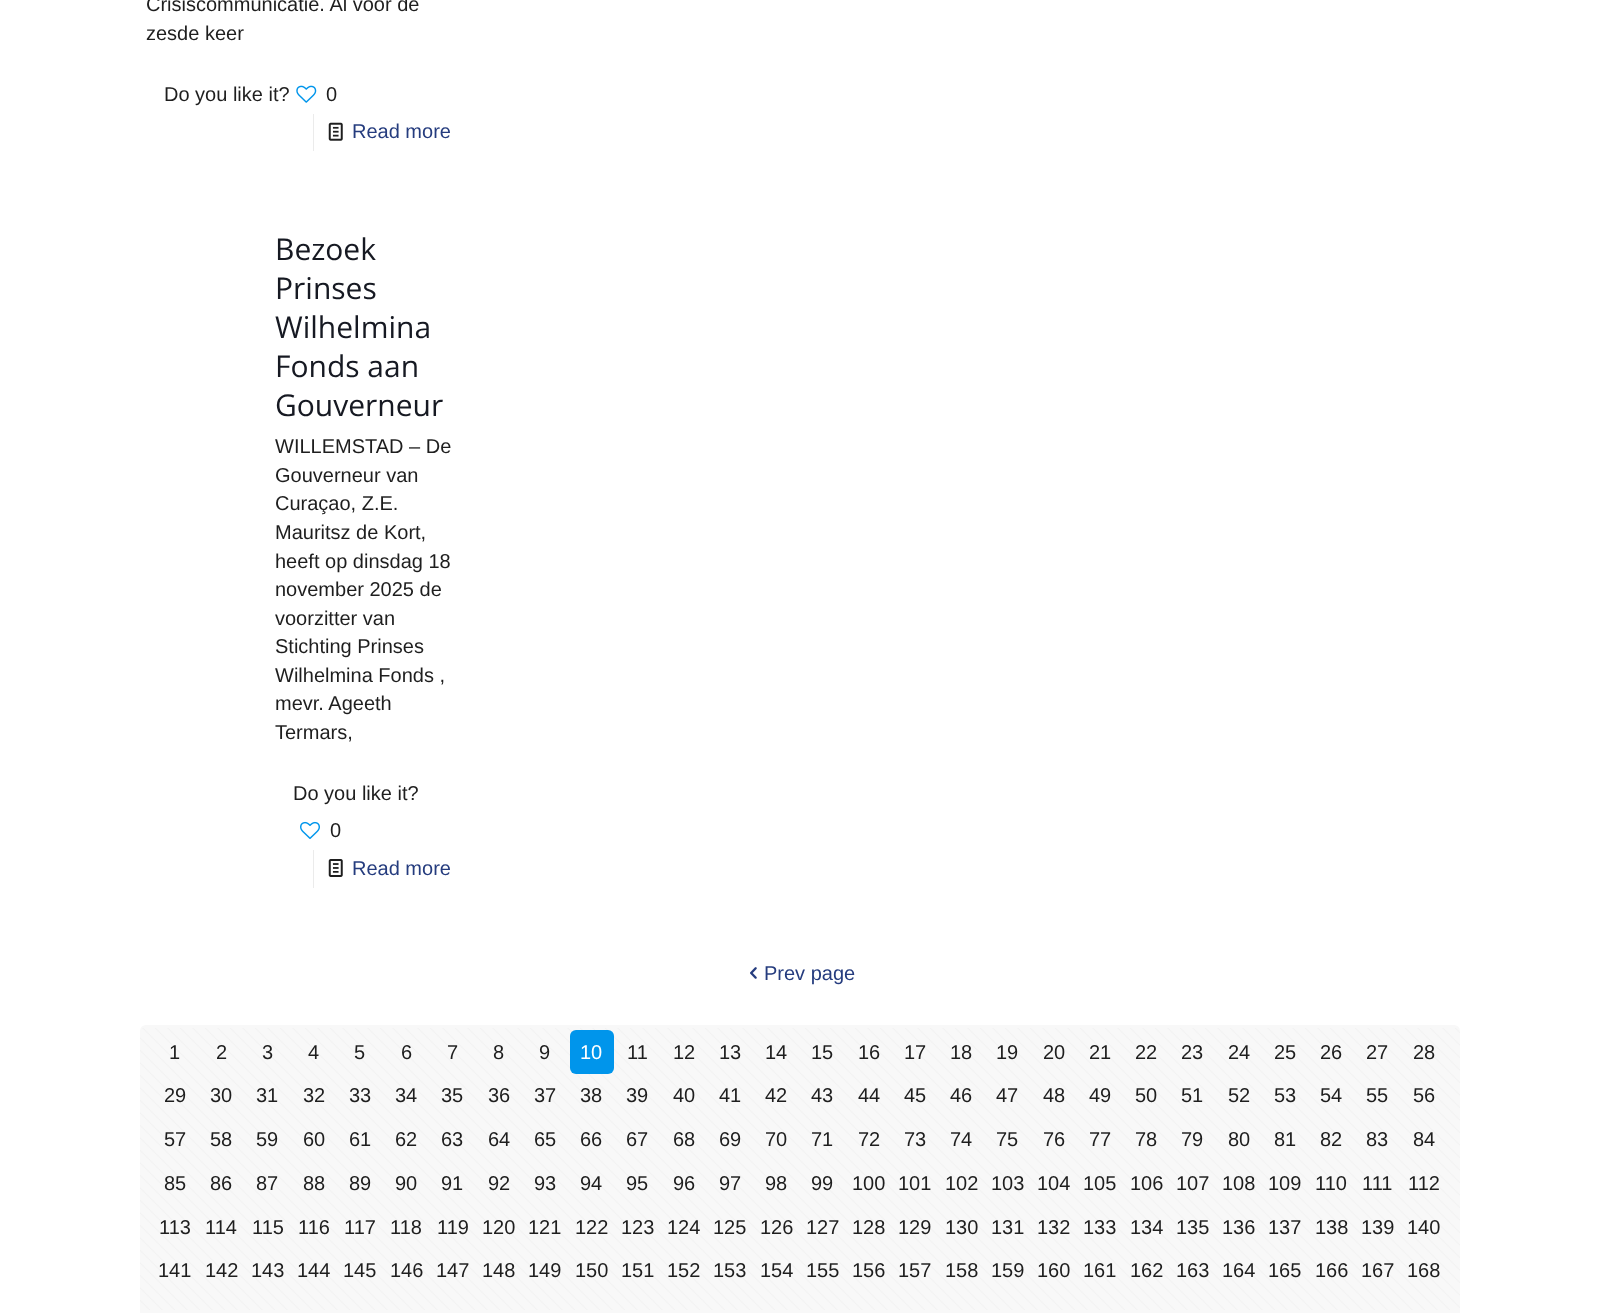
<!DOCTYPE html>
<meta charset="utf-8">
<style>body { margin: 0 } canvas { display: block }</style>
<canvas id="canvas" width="1598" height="1313"></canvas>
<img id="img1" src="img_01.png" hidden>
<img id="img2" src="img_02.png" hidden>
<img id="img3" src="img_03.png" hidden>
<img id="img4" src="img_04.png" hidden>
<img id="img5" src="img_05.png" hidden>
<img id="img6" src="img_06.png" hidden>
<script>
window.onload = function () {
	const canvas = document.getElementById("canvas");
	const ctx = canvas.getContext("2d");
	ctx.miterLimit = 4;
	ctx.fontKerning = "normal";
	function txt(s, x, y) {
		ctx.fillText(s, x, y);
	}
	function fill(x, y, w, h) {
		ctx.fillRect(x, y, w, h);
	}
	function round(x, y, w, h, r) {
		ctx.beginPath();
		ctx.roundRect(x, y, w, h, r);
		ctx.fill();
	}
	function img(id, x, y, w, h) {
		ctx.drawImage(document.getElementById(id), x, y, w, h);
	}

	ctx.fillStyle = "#FFFFFF";
	fill(0, 0, 1598, 1313);
	img("img1", 296, 85, 21, 18);
	ctx.fillStyle = "#EBEBEB";
	fill(313, 114, 1, 37);
	img("img2", 328, 122, 15, 19);
	img("img3", 300, 821, 20, 18);
	fill(313, 850, 1, 38);
	img("img4", 328, 859, 15, 18);
	img("img5", 750, 967, 7, 12);
	ctx.fillStyle = "#F8F8F8";
	round(140, 1025, 1320, 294, 6);
	img("img6", 140, 1028, 1320, 282);
	ctx.fillStyle = "#0095EB";
	round(570, 1030, 44, 44, 6);
	ctx.font = "20px Liberation Sans";
	ctx.fillStyle = "#1E1E1E";
	txt("Crisiscommunicatie. Al voor de", 146, 11);
	txt("zesde keer", 146, 40);
	txt("Do you like it?", 164, 101);
	txt("0", 326, 101);
	ctx.fillStyle = "#253C7E";
	txt("Read more", 352, 138);
	ctx.font = "30px Open Sans";
	ctx.fillStyle = "#161922";
	txt("Bezoek", 275, 260);
	txt("Prinses", 275, 299);
	txt("Wilhelmina", 275, 338);
	txt("Fonds aan", 275, 377);
	txt("Gouverneur", 275, 416);
	ctx.font = "20px Liberation Sans";
	ctx.fillStyle = "#1E1E1E";
	txt("WILLEMSTAD – De", 275, 453);
	txt("Gouverneur van", 275, 482);
	txt("Curaçao, Z.E.", 275, 510);
	txt("Mauritsz de Kort,", 275, 539);
	txt("heeft op dinsdag 18", 275, 568);
	txt("november 2025 de", 275, 596);
	txt("voorzitter van", 275, 625);
	txt("Stichting Prinses", 275, 653);
	txt("Wilhelmina Fonds ,", 275, 682);
	txt("mevr. Ageeth", 275, 710);
	txt("Termars,", 275, 739);
	txt("Do you like it?", 293, 800);
	txt("0", 330, 837);
	ctx.fillStyle = "#253C7E";
	txt("Read more", 352, 875);
	txt("Prev page", 764, 980);
	ctx.fillStyle = "#1E1E1E";
	txt("1", 169, 1059);
	txt("2", 216, 1059);
	txt("3", 262, 1059);
	txt("4", 308, 1059);
	txt("5", 354, 1059);
	txt("6", 401, 1059);
	txt("7", 447, 1059);
	txt("8", 493, 1059);
	txt("9", 539, 1059);
	ctx.fillStyle = "#FFFFFF";
	txt("10", 580, 1059);
	ctx.fillStyle = "#1E1E1E";
	txt("11", 627, 1059);
	txt("12", 673, 1059);
	txt("13", 719, 1059);
	txt("14", 765, 1059);
	txt("15", 811, 1059);
	txt("16", 858, 1059);
	txt("17", 904, 1059);
	txt("18", 950, 1059);
	txt("19", 996, 1059);
	txt("20", 1043, 1059);
	txt("21", 1089, 1059);
	txt("22", 1135, 1059);
	txt("23", 1181, 1059);
	txt("24", 1228, 1059);
	txt("25", 1274, 1059);
	txt("26", 1320, 1059);
	txt("27", 1366, 1059);
	txt("28", 1413, 1059);
	txt("29", 164, 1102);
	txt("30", 210, 1102);
	txt("31", 256, 1102);
	txt("32", 303, 1102);
	txt("33", 349, 1102);
	txt("34", 395, 1102);
	txt("35", 441, 1102);
	txt("36", 488, 1102);
	txt("37", 534, 1102);
	txt("38", 580, 1102);
	txt("39", 626, 1102);
	txt("40", 673, 1102);
	txt("41", 719, 1102);
	txt("42", 765, 1102);
	txt("43", 811, 1102);
	txt("44", 858, 1102);
	txt("45", 904, 1102);
	txt("46", 950, 1102);
	txt("47", 996, 1102);
	txt("48", 1043, 1102);
	txt("49", 1089, 1102);
	txt("50", 1135, 1102);
	txt("51", 1181, 1102);
	txt("52", 1228, 1102);
	txt("53", 1274, 1102);
	txt("54", 1320, 1102);
	txt("55", 1366, 1102);
	txt("56", 1413, 1102);
	txt("57", 164, 1146);
	txt("58", 210, 1146);
	txt("59", 256, 1146);
	txt("60", 303, 1146);
	txt("61", 349, 1146);
	txt("62", 395, 1146);
	txt("63", 441, 1146);
	txt("64", 488, 1146);
	txt("65", 534, 1146);
	txt("66", 580, 1146);
	txt("67", 626, 1146);
	txt("68", 673, 1146);
	txt("69", 719, 1146);
	txt("70", 765, 1146);
	txt("71", 811, 1146);
	txt("72", 858, 1146);
	txt("73", 904, 1146);
	txt("74", 950, 1146);
	txt("75", 996, 1146);
	txt("76", 1043, 1146);
	txt("77", 1089, 1146);
	txt("78", 1135, 1146);
	txt("79", 1181, 1146);
	txt("80", 1228, 1146);
	txt("81", 1274, 1146);
	txt("82", 1320, 1146);
	txt("83", 1366, 1146);
	txt("84", 1413, 1146);
	txt("85", 164, 1190);
	txt("86", 210, 1190);
	txt("87", 256, 1190);
	txt("88", 303, 1190);
	txt("89", 349, 1190);
	txt("90", 395, 1190);
	txt("91", 441, 1190);
	txt("92", 488, 1190);
	txt("93", 534, 1190);
	txt("94", 580, 1190);
	txt("95", 626, 1190);
	txt("96", 673, 1190);
	txt("97", 719, 1190);
	txt("98", 765, 1190);
	txt("99", 811, 1190);
	txt("100", 852, 1190);
	txt("101", 898, 1190);
	txt("102", 945, 1190);
	txt("103", 991, 1190);
	txt("104", 1037, 1190);
	txt("105", 1083, 1190);
	txt("106", 1130, 1190);
	txt("107", 1176, 1190);
	txt("108", 1222, 1190);
	txt("109", 1268, 1190);
	txt("110", 1315, 1190);
	txt("111", 1362, 1190);
	txt("112", 1408, 1190);
	txt("113", 159, 1234);
	txt("114", 205, 1234);
	txt("115", 252, 1234);
	txt("116", 298, 1234);
	txt("117", 344, 1234);
	txt("118", 390, 1234);
	txt("119", 437, 1234);
	txt("120", 482, 1234);
	txt("121", 528, 1234);
	txt("122", 575, 1234);
	txt("123", 621, 1234);
	txt("124", 667, 1234);
	txt("125", 713, 1234);
	txt("126", 760, 1234);
	txt("127", 806, 1234);
	txt("128", 852, 1234);
	txt("129", 898, 1234);
	txt("130", 945, 1234);
	txt("131", 991, 1234);
	txt("132", 1037, 1234);
	txt("133", 1083, 1234);
	txt("134", 1130, 1234);
	txt("135", 1176, 1234);
	txt("136", 1222, 1234);
	txt("137", 1268, 1234);
	txt("138", 1315, 1234);
	txt("139", 1361, 1234);
	txt("140", 1407, 1234);
	txt("141", 158, 1277);
	txt("142", 205, 1277);
	txt("143", 251, 1277);
	txt("144", 297, 1277);
	txt("145", 343, 1277);
	txt("146", 390, 1277);
	txt("147", 436, 1277);
	txt("148", 482, 1277);
	txt("149", 528, 1277);
	txt("150", 575, 1277);
	txt("151", 621, 1277);
	txt("152", 667, 1277);
	txt("153", 713, 1277);
	txt("154", 760, 1277);
	txt("155", 806, 1277);
	txt("156", 852, 1277);
	txt("157", 898, 1277);
	txt("158", 945, 1277);
	txt("159", 991, 1277);
	txt("160", 1037, 1277);
	txt("161", 1083, 1277);
	txt("162", 1130, 1277);
	txt("163", 1176, 1277);
	txt("164", 1222, 1277);
	txt("165", 1268, 1277);
	txt("166", 1315, 1277);
	txt("167", 1361, 1277);
	txt("168", 1407, 1277);
};
</script>
